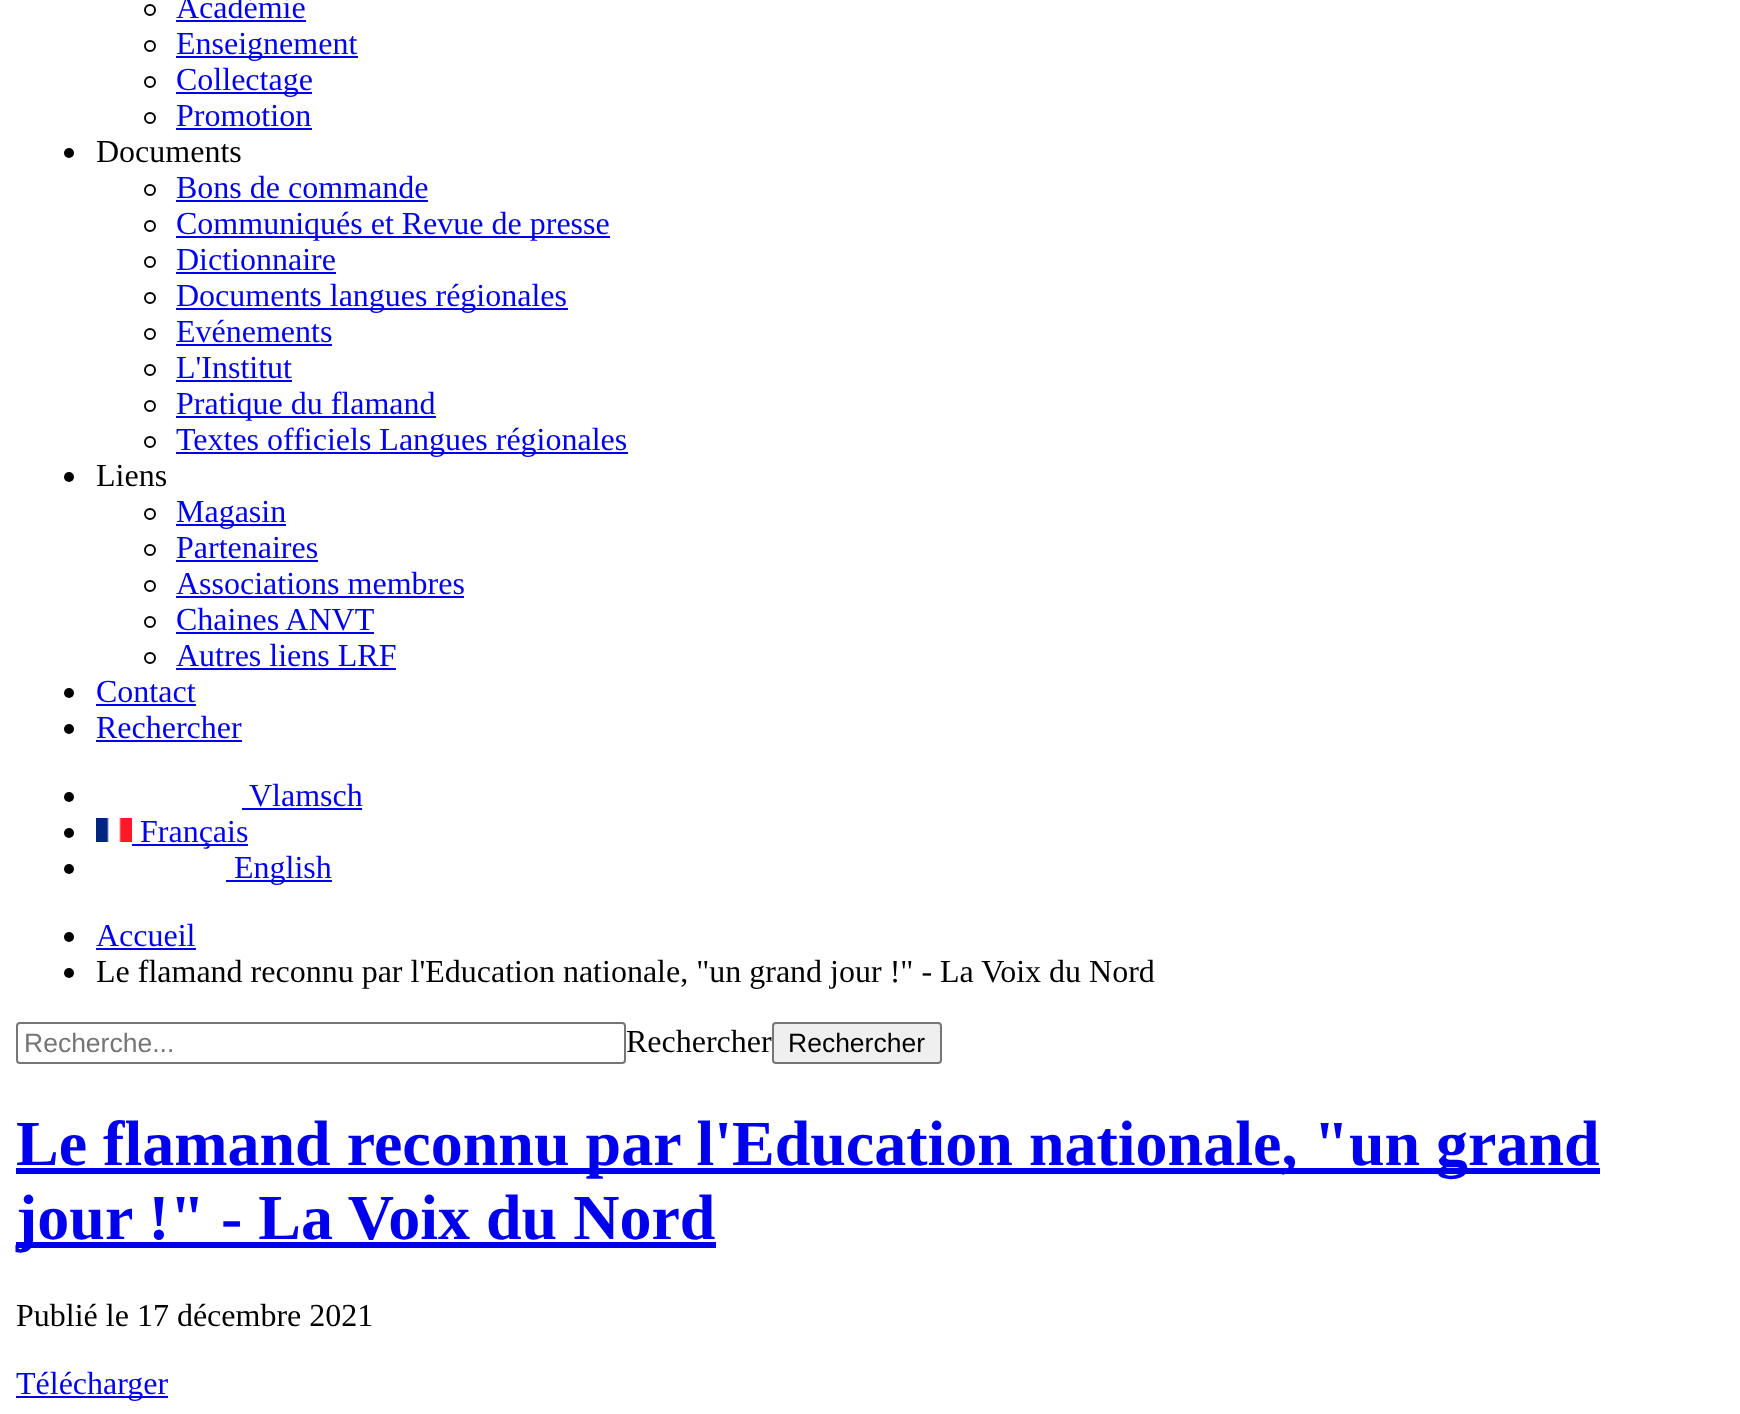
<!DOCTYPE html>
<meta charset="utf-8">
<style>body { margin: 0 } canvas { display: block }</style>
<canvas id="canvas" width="1740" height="1414"></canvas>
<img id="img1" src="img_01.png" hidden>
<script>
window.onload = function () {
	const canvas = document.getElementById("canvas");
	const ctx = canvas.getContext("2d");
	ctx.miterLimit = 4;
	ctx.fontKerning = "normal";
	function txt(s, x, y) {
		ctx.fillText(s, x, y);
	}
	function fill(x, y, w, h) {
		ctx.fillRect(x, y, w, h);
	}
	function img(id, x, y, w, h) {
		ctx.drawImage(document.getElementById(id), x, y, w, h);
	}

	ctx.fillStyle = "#FFFFFF";
	fill(0, 0, 1740, 1414);
	ctx.beginPath();
	ctx.arc(150, 10, 5, 0, Math.PI * 2);
	ctx.strokeStyle = "#000000";
	ctx.lineWidth = 2;
	ctx.stroke();
	ctx.fillStyle = "#0000EE";
	fill(176, 20, 130, 2);
	ctx.beginPath();
	ctx.arc(150, 46, 5, 0, Math.PI * 2);
	ctx.stroke();
	fill(176, 56, 182, 2);
	ctx.beginPath();
	ctx.arc(150, 82, 5, 0, Math.PI * 2);
	ctx.stroke();
	fill(176, 92, 136, 2);
	ctx.beginPath();
	ctx.arc(150, 118, 5, 0, Math.PI * 2);
	ctx.stroke();
	fill(176, 128, 136, 2);
	ctx.fillStyle = "#000000";
	ctx.beginPath();
	ctx.arc(69, 153, 5, 0, Math.PI * 2);
	ctx.fill();
	ctx.beginPath();
	ctx.arc(150, 190, 5, 0, Math.PI * 2);
	ctx.stroke();
	ctx.fillStyle = "#0000EE";
	fill(176, 200, 252, 2);
	ctx.beginPath();
	ctx.arc(150, 226, 5, 0, Math.PI * 2);
	ctx.stroke();
	fill(176, 236, 434, 2);
	ctx.beginPath();
	ctx.arc(150, 262, 5, 0, Math.PI * 2);
	ctx.stroke();
	fill(176, 272, 160, 2);
	ctx.beginPath();
	ctx.arc(150, 298, 5, 0, Math.PI * 2);
	ctx.stroke();
	fill(176, 308, 392, 2);
	ctx.beginPath();
	ctx.arc(150, 334, 5, 0, Math.PI * 2);
	ctx.stroke();
	fill(176, 344, 156, 2);
	ctx.beginPath();
	ctx.arc(150, 370, 5, 0, Math.PI * 2);
	ctx.stroke();
	fill(176, 380, 116, 2);
	ctx.beginPath();
	ctx.arc(150, 406, 5, 0, Math.PI * 2);
	ctx.stroke();
	fill(176, 416, 260, 2);
	ctx.beginPath();
	ctx.arc(150, 442, 5, 0, Math.PI * 2);
	ctx.stroke();
	fill(176, 452, 452, 2);
	ctx.fillStyle = "#000000";
	ctx.beginPath();
	ctx.arc(69, 477, 5, 0, Math.PI * 2);
	ctx.fill();
	ctx.beginPath();
	ctx.arc(150, 514, 5, 0, Math.PI * 2);
	ctx.stroke();
	ctx.fillStyle = "#0000EE";
	fill(176, 524, 110, 2);
	ctx.beginPath();
	ctx.arc(150, 550, 5, 0, Math.PI * 2);
	ctx.stroke();
	fill(176, 560, 142, 2);
	ctx.beginPath();
	ctx.arc(150, 586, 5, 0, Math.PI * 2);
	ctx.stroke();
	fill(176, 596, 288, 2);
	ctx.beginPath();
	ctx.arc(150, 622, 5, 0, Math.PI * 2);
	ctx.stroke();
	fill(176, 632, 198, 2);
	ctx.beginPath();
	ctx.arc(150, 658, 5, 0, Math.PI * 2);
	ctx.stroke();
	fill(176, 668, 220, 2);
	ctx.fillStyle = "#000000";
	ctx.beginPath();
	ctx.arc(69, 693, 5, 0, Math.PI * 2);
	ctx.fill();
	ctx.fillStyle = "#0000EE";
	fill(96, 704, 100, 2);
	ctx.fillStyle = "#000000";
	ctx.beginPath();
	ctx.arc(69, 729, 5, 0, Math.PI * 2);
	ctx.fill();
	ctx.fillStyle = "#0000EE";
	fill(96, 740, 146, 2);
	ctx.fillStyle = "#000000";
	ctx.beginPath();
	ctx.arc(69, 797, 5, 0, Math.PI * 2);
	ctx.fill();
	ctx.fillStyle = "#0000EE";
	fill(242, 808, 120, 2);
	ctx.fillStyle = "#000000";
	ctx.beginPath();
	ctx.arc(69, 833, 5, 0, Math.PI * 2);
	ctx.fill();
	img("img1", 96, 818, 36, 24);
	ctx.fillStyle = "#0000EE";
	fill(132, 844, 116, 2);
	ctx.fillStyle = "#000000";
	ctx.beginPath();
	ctx.arc(69, 869, 5, 0, Math.PI * 2);
	ctx.fill();
	ctx.fillStyle = "#0000EE";
	fill(226, 880, 106, 2);
	ctx.fillStyle = "#000000";
	ctx.beginPath();
	ctx.arc(69, 937, 5, 0, Math.PI * 2);
	ctx.fill();
	ctx.fillStyle = "#0000EE";
	fill(96, 948, 100, 2);
	ctx.fillStyle = "#000000";
	ctx.beginPath();
	ctx.arc(69, 973, 5, 0, Math.PI * 2);
	ctx.fill();
	ctx.beginPath();
	ctx.roundRect(17, 1023, 608, 40, 3);
	ctx.strokeStyle = "#767676";
	ctx.stroke();
	ctx.fillStyle = "#EFEFEF";
	ctx.beginPath();
	ctx.roundRect(773, 1023, 168, 40, 3);
	ctx.fill();
	ctx.stroke();
	ctx.fillStyle = "#0000EE";
	fill(16, 1168, 1584, 6);
	fill(16, 1242, 700, 6);
	fill(16, 1396, 152, 2);
	ctx.font = "32px Liberation Serif";
	txt("Académie", 176, 18);
	txt("Enseignement", 176, 54);
	txt("Collectage", 176, 90);
	txt("Promotion", 176, 126);
	ctx.fillStyle = "#000000";
	txt("Documents", 96, 162);
	ctx.fillStyle = "#0000EE";
	txt("Bons de commande", 176, 198);
	txt("Communiqués et Revue de presse", 176, 234);
	txt("Dictionnaire", 176, 270);
	txt("Documents langues régionales", 176, 306);
	txt("Evénements", 176, 342);
	txt("L'Institut", 176, 378);
	txt("Pratique du flamand", 176, 414);
	txt("Textes officiels Langues régionales", 176, 450);
	ctx.fillStyle = "#000000";
	txt("Liens", 96, 486);
	ctx.fillStyle = "#0000EE";
	txt("Magasin", 176, 522);
	txt("Partenaires", 176, 558);
	txt("Associations membres", 176, 594);
	txt("Chaines ANVT", 176, 630);
	txt("Autres liens LRF", 176, 666);
	txt("Contact", 96, 702);
	txt("Rechercher", 96, 738);
	txt("Vlamsch", 249, 806);
	txt("Français", 140, 842);
	txt("English", 234, 878);
	txt("Accueil", 96, 946);
	ctx.fillStyle = "#000000";
	txt("Le flamand reconnu par l'Education nationale, \"un grand jour !\" - La Voix du Nord", 96, 982);
	ctx.font = "26.5px Liberation Sans";
	ctx.fillStyle = "#757575";
	txt("Recherche...", 24, 1052);
	ctx.font = "32px Liberation Serif";
	ctx.fillStyle = "#000000";
	txt("Rechercher", 626, 1052);
	ctx.font = "26.5px Liberation Sans";
	txt("Rechercher", 788, 1052);
	ctx.font = "bold 64px Liberation Serif";
	ctx.fillStyle = "#0000EE";
	txt("Le flamand reconnu par l'Education nationale, \"un grand", 16, 1165);
	txt("jour !\" - La Voix du Nord", 16, 1239);
	ctx.font = "32px Liberation Serif";
	ctx.fillStyle = "#000000";
	txt("Publié le 17 décembre 2021", 16, 1326);
	ctx.fillStyle = "#0000EE";
	txt("Télécharger", 16, 1394);
};
</script>
